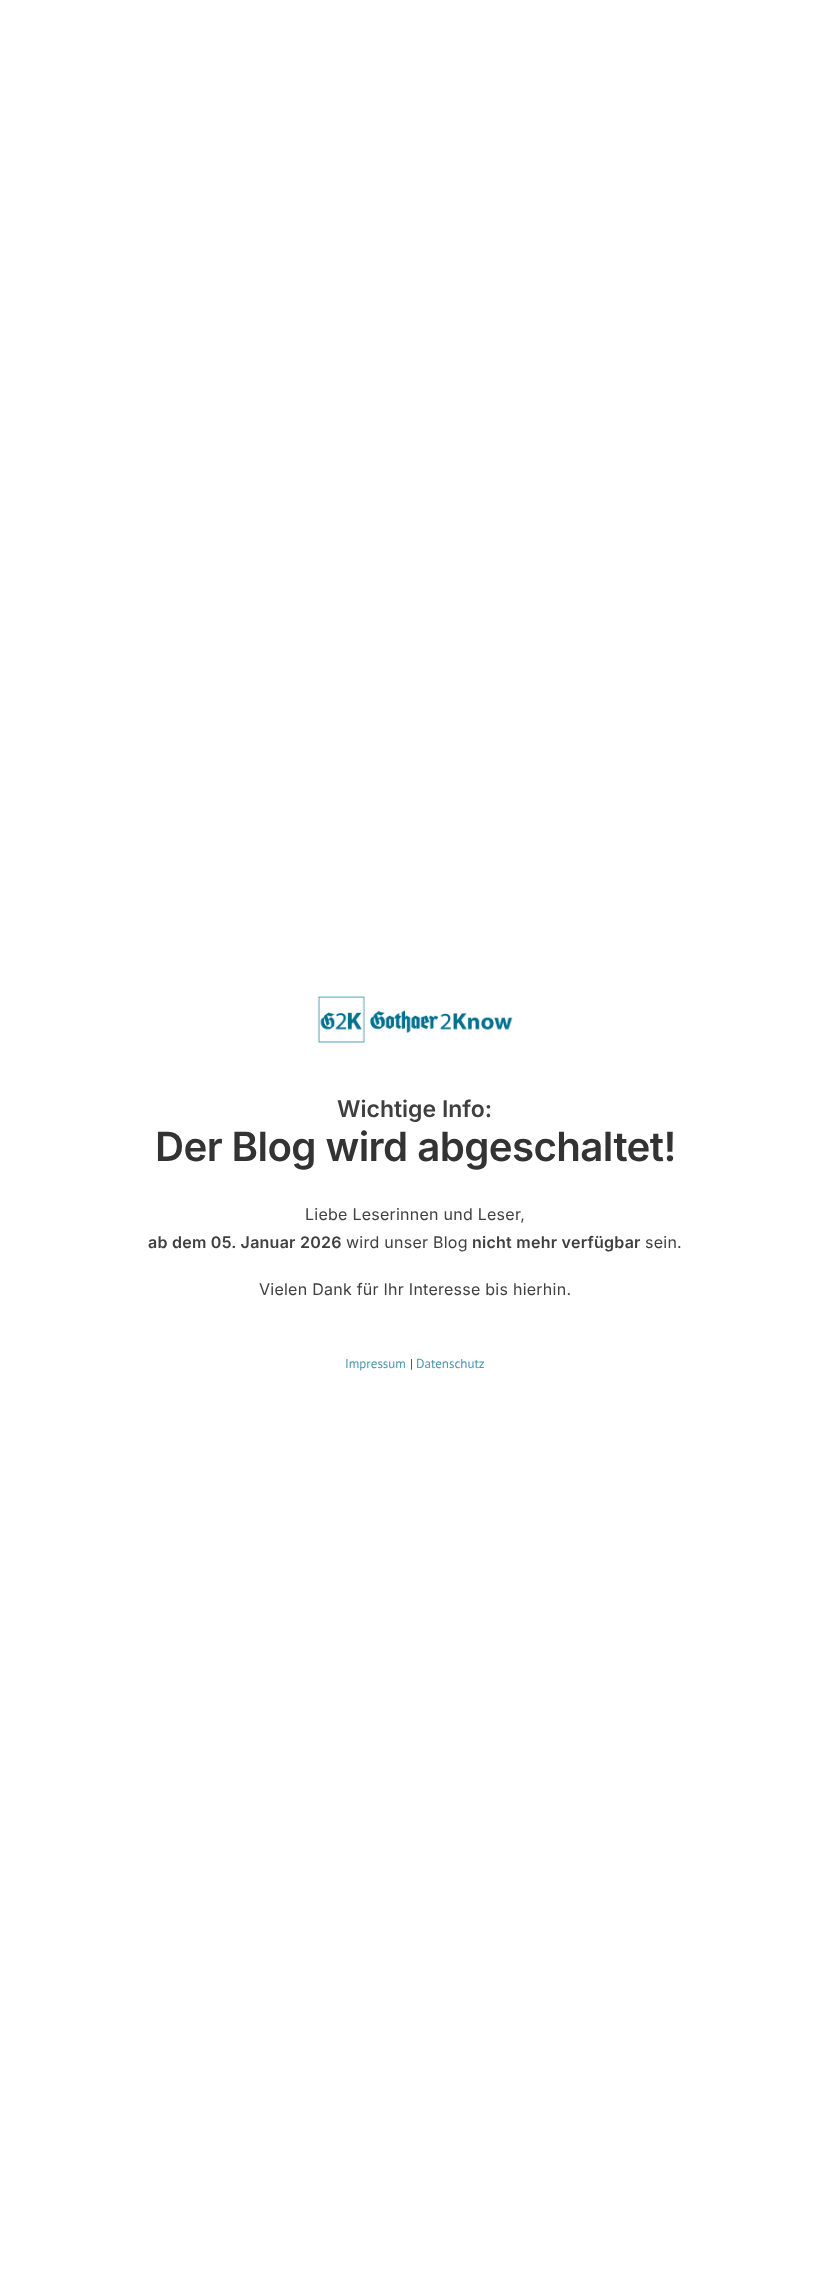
<!DOCTYPE html>
<meta charset="utf-8">
<style>body { margin: 0 } canvas { display: block }</style>
<canvas id="canvas" width="830" height="2276"></canvas>
<img id="img1" src="img_01.png" hidden>
<script>
window.onload = function () {
	const canvas = document.getElementById("canvas");
	const ctx = canvas.getContext("2d");
	ctx.miterLimit = 4;
	ctx.fontKerning = "normal";
	function txt(s, x, y) {
		ctx.fillText(s, x, y);
	}
	function fill(x, y, w, h) {
		ctx.fillRect(x, y, w, h);
	}
	function img(id, x, y, w, h) {
		ctx.drawImage(document.getElementById(id), x, y, w, h);
	}

	ctx.fillStyle = "#FFFFFF";
	fill(0, 0, 830, 2276);
	img("img1", 317, 996, 196, 47);
	ctx.font = "600 23px Inter";
	ctx.fillStyle = "#3F3F3F";
	txt("Wichtige Info:", 337, 1117);
	ctx.letterSpacing = "-0.6px";
	ctx.font = "600 40.25px Inter";
	ctx.fillStyle = "#333333";
	txt("Der Blog wird abgeschaltet!", 155, 1161);
	ctx.letterSpacing = "0.25px";
	ctx.font = "16px Inter";
	ctx.fillStyle = "#3F3F3F";
	txt("Liebe Leserinnen und Leser,", 305, 1220);
	ctx.font = "600 16px Inter";
	txt("ab dem 05. Januar 2026", 148, 1248);
	ctx.font = "16px Inter";
	txt("wird unser Blog", 346, 1248);
	ctx.font = "600 16px Inter";
	txt("nicht mehr verfügbar", 472, 1248);
	ctx.font = "16px Inter";
	txt("sein.", 645, 1248);
	txt("Vielen Dank für Ihr Interesse bis hierhin.", 259, 1295);
	ctx.letterSpacing = "0px";
	ctx.font = "13px PT Sans";
	ctx.fillStyle = "#4899AF";
	txt("Impressum", 345, 1368);
	ctx.fillStyle = "#3F3F3F";
	txt("|", 410, 1368);
	ctx.fillStyle = "#4899AF";
	txt("Datenschutz", 416, 1368);
};
</script>
